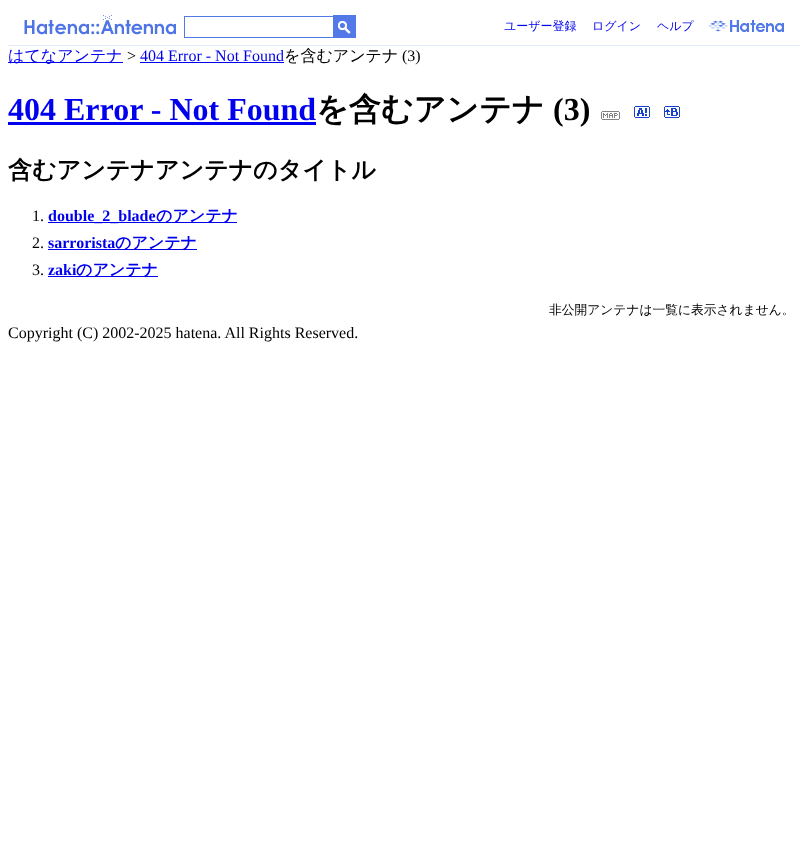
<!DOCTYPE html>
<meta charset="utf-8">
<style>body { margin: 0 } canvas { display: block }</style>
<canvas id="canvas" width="808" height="866"></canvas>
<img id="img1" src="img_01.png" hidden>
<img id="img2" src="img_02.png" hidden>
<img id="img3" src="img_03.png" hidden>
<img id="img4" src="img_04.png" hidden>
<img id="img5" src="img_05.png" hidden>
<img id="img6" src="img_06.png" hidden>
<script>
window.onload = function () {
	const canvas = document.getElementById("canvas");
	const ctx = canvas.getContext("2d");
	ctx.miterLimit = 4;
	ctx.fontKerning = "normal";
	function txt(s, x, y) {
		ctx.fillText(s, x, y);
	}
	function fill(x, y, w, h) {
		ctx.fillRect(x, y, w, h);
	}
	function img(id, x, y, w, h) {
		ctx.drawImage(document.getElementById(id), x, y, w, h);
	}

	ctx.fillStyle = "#FFFFFF";
	fill(0, 0, 808, 866);
	ctx.fillStyle = "#E0E9FA";
	fill(8, 45, 792, 1);
	img("img1", 24, 15, 152, 20);
	ctx.strokeStyle = "#5279E7";
	ctx.strokeRect(184.5, 16.5, 149, 21);
	ctx.fillStyle = "#5279E7";
	fill(333, 15, 23, 23);
	img("img2", 338, 21, 13, 13);
	img("img3", 708, 20, 76, 12);
	ctx.fillStyle = "#0000EE";
	fill(8, 62, 115, 1);
	fill(140, 62, 144, 1);
	fill(8, 122, 308, 3);
	img("img4", 601, 111, 19, 9);
	img("img5", 634, 106, 16, 12);
	img("img6", 664, 106, 16, 12);
	fill(48, 222, 189, 1);
	fill(48, 249, 149, 1);
	fill(48, 276, 110, 1);
	ctx.font = "500 12px WenQuanYi Zen Hei";
	txt("ユーザー登録", 504, 30);
	txt("ログイン", 592, 30);
	txt("ヘルプ", 657, 30);
	ctx.font = "500 16px WenQuanYi Zen Hei";
	txt("はてなアンテナ", 8, 61);
	ctx.font = "16px Liberation Serif";
	ctx.fillStyle = "#000000";
	txt(">", 127, 61);
	ctx.fillStyle = "#0000EE";
	txt("404 Error - Not Found", 140, 61);
	ctx.font = "500 16px WenQuanYi Zen Hei";
	ctx.fillStyle = "#000000";
	txt("を含むアンテナ", 284, 61);
	ctx.font = "16px Liberation Serif";
	txt("(3)", 402, 61);
	ctx.font = "bold 32px Liberation Serif";
	ctx.fillStyle = "#0000EE";
	txt("404 Error - Not Found", 8, 120);
	ctx.font = "bold 32px WenQuanYi Zen Hei";
	ctx.fillStyle = "#000000";
	txt("を含むアンテナ", 316, 120);
	ctx.font = "bold 32px Liberation Serif";
	txt("(3)", 553, 120);
	ctx.font = "bold 24px WenQuanYi Zen Hei";
	txt("含むアンテナアンテナのタイトル", 8, 178);
	ctx.font = "16px Liberation Serif";
	txt("1.", 32, 221);
	ctx.font = "bold 16px Liberation Serif";
	ctx.fillStyle = "#0000EE";
	txt("double_2_blade", 48, 221);
	ctx.font = "bold 16px WenQuanYi Zen Hei";
	txt("のアンテナ", 156, 221);
	ctx.font = "16px Liberation Serif";
	ctx.fillStyle = "#000000";
	txt("2.", 32, 248);
	ctx.font = "bold 16px Liberation Serif";
	ctx.fillStyle = "#0000EE";
	txt("sarrorista", 48, 248);
	ctx.font = "bold 16px WenQuanYi Zen Hei";
	txt("のアンテナ", 115, 248);
	ctx.font = "16px Liberation Serif";
	ctx.fillStyle = "#000000";
	txt("3.", 32, 275);
	ctx.font = "bold 16px Liberation Serif";
	ctx.fillStyle = "#0000EE";
	txt("zaki", 48, 275);
	ctx.font = "bold 16px WenQuanYi Zen Hei";
	txt("のアンテナ", 76, 275);
	ctx.font = "500 12.75px WenQuanYi Zen Hei";
	ctx.fillStyle = "#000000";
	txt("非公開アンテナは一覧に表示されません。", 549, 314);
	ctx.font = "16px Liberation Serif";
	txt("Copyright (C) 2002-2025 hatena. All Rights Reserved.", 8, 338);
};
</script>
